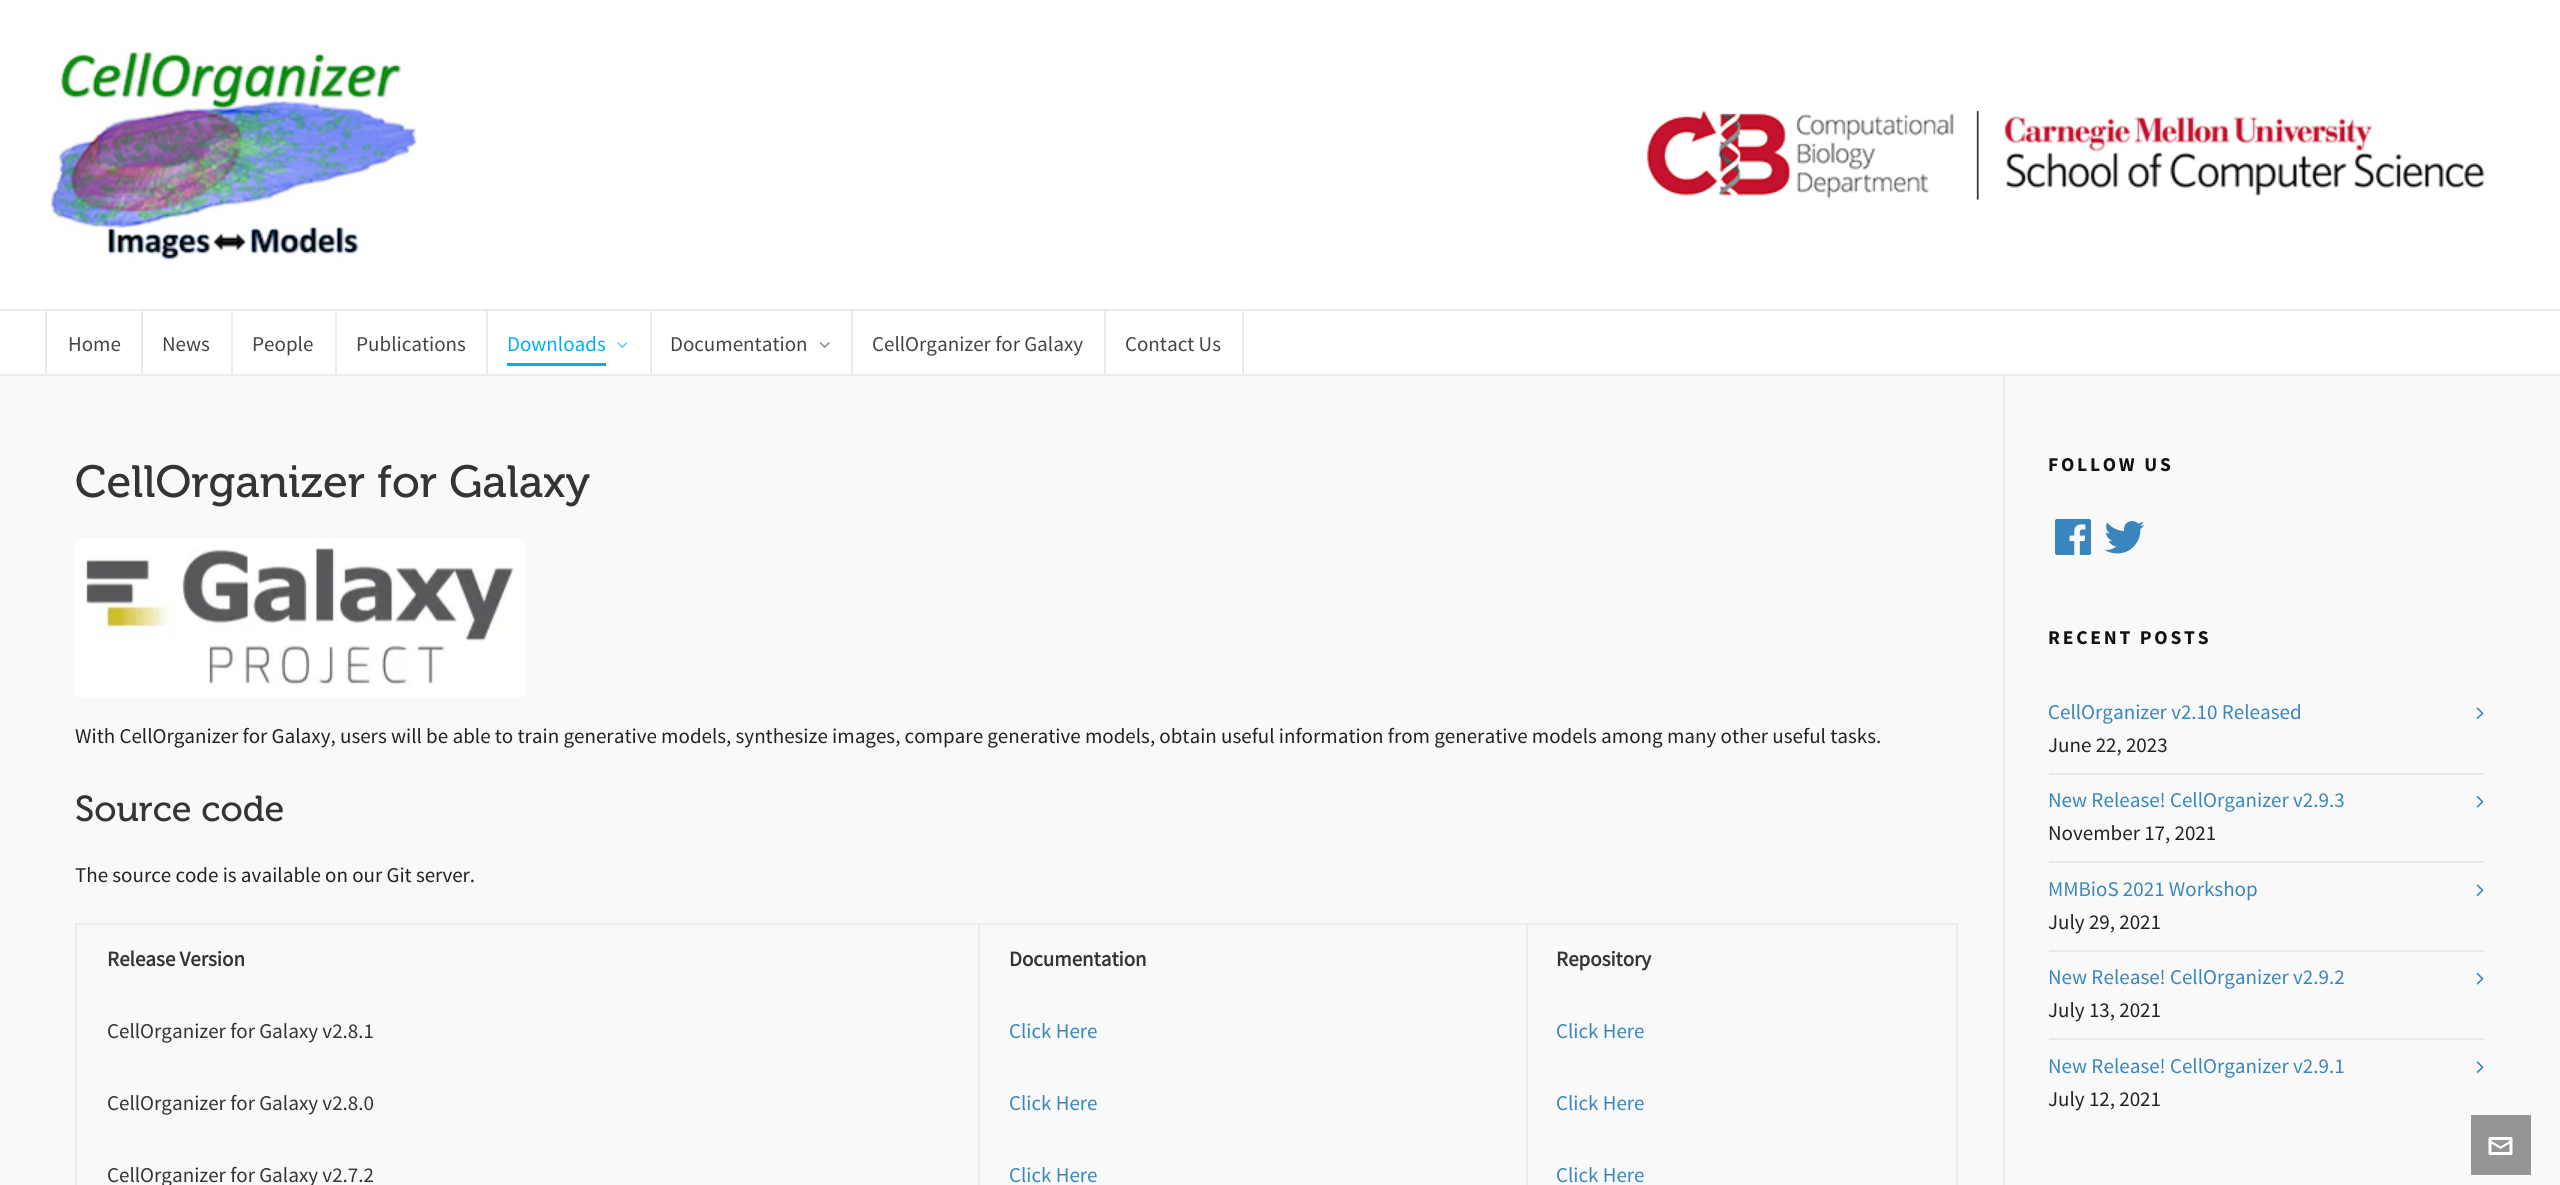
#include <cairo.h>
#include <math.h>
#include <stddef.h>

static cairo_t *c;
static void C(unsigned color){cairo_set_source_rgb(c, (color >> 16) / 255.0, (color >> 8 & 255) / 255.0, (color & 255) / 255.0);}
static void F(const char *family, double size, int italic, int bold){cairo_select_font_face(c, family, italic ? CAIRO_FONT_SLANT_ITALIC : CAIRO_FONT_SLANT_NORMAL,bold ? CAIRO_FONT_WEIGHT_BOLD : CAIRO_FONT_WEIGHT_NORMAL);cairo_set_font_size(c, size);}
static void T(double x, double y, const char *s){cairo_move_to(c, x, y);cairo_show_text(c, s);}
static void L(double x, double y, const char *s, double letter, double word){cairo_move_to(c, x, y);while (*s) {char ch[5] = {0};int n = 0;do ch[n++] = *s++; while ((*s & 0xC0) == 0x80);cairo_show_text(c, ch);cairo_rel_move_to(c, letter + word * (*ch == ' '), 0);}}
static void R(double x, double y, double w, double h){cairo_rectangle(c, x, y, w, h);cairo_fill(c);}
static void I(const char *path, double x, double y, double w, double h){cairo_surface_t *image = cairo_image_surface_create_from_png(path);cairo_save(c);cairo_set_source_surface(c, image, x, y);cairo_rectangle(c, x, y, w, h);cairo_fill(c);cairo_restore(c);cairo_surface_destroy(image);}
int main(void) {
cairo_surface_t *surface = cairo_image_surface_create(CAIRO_FORMAT_RGB24, 2560, 1185);
c = cairo_create(surface);
cairo_font_options_t *options = cairo_font_options_create();
cairo_font_options_set_hint_metrics(options, CAIRO_HINT_METRICS_OFF);
cairo_font_options_set_hint_style(options, CAIRO_HINT_STYLE_NONE);
cairo_set_font_options(c, options);
cairo_set_miter_limit(c, 4);
C(0xf9f9f9);
cairo_paint(c);
C(0xffffff);
R(0,0,2560,374);
C(0xebebeb);
R(2003,374,2,811);
R(0,374,2560,2);
I("1.png",50,51,367,209);
I("2.png",1646,110,333,90);
I("3.png",2003,115,482,81);
R(0,309,2560,2);
R(141,311,2,63);
R(45,311,2,63);
F("Source Sans Pro",21,0,0);
C(0x444444);
T(68,351,"Home");
C(0xebebeb);
R(231,311,2,63);
C(0x444444);
T(162,351,"News");
C(0xebebeb);
R(335,311,2,63);
C(0x444444);
T(252,351,"People");
C(0xebebeb);
R(486,311,2,63);
C(0x444444);
T(356,351,"Publications");
C(0xebebeb);
R(650,311,2,63);
C(0x00aeef);
T(507,351,"Downloads");
R(507,363,99,3);
I("4.png",617,342,11,6);
C(0xebebeb);
R(851,311,2,63);
C(0x444444);
T(670,351,"Documentation");
I("5.png",819,342,11,6);
C(0xebebeb);
R(1104,311,2,63);
C(0x444444);
T(872,351,"CellOrganizer for Galaxy");
C(0xebebeb);
R(1242,311,2,63);
C(0x444444);
T(1125,351,"Contact Us");
F("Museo",45,0,0);
C(0x323436);
T(75,497,"CellOrganizer for Galaxy");
I("6.png",75,539,450,158);
F("Source Sans Pro",21,0,0);
C(0x222222);
T(75,743,"With CellOrganizer for Galaxy, users will be able to train generative models, synthesize images, compare generative models, obtain useful information from generative models among many other useful tasks.");
F("Museo",36,0,0);
C(0x323436);
T(75,821,"Source code");
F("Source Sans Pro",21,0,0);
C(0x222222);
T(75,882,"The source code is available on our Git server.");
C(0xebebeb);
R(75,923,1883,2);
R(1956,923,2,262);
R(75,923,2,262);
F("Source Sans Pro",21,0,1);
C(0x323436);
T(107,966,"Release Version");
T(1009,966,"Documentation");
T(1556,966,"Repository");
F("Source Sans Pro",21,0,0);
T(107,1038,"CellOrganizer for Galaxy v2.8.1");
C(0x3886bd);
T(1009,1038,"Click Here");
T(1556,1038,"Click Here");
C(0x323436);
T(107,1110,"CellOrganizer for Galaxy v2.8.0");
C(0x3886bd);
T(1009,1110,"Click Here");
T(1556,1110,"Click Here");
C(0x323436);
T(107,1182,"CellOrganizer for Galaxy v2.7.2");
C(0xebebeb);
R(978,923,2,262);
C(0x3886bd);
T(1009,1182,"Click Here");
C(0xebebeb);
R(1526,923,2,262);
C(0x3886bd);
T(1556,1182,"Click Here");
F("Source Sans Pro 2",19.5,0,1);
C(0x111111);
L(2048,471,"FOLLOW US",2.75,0);
I("7.png",2055,519,36,36);
I("8.png",2104,521,41,33);
L(2048,644,"RECENT POSTS",2.75,0);
F("Source Sans Pro",21,0,0);
C(0x3886bd);
T(2048,719,"CellOrganizer v2.10 Released");
I("9.png",2476,707,8,12);
C(0x222222);
T(2048,752,"June 22, 2023");
C(0xe8e8e8);
R(2049,773,435,2);
C(0x3886bd);
T(2048,807,"New Release! CellOrganizer v2.9.3");
I("10.png",2476,796,8,12);
C(0x222222);
T(2048,840,"November 17, 2021");
C(0xe8e8e8);
R(2049,861,435,2);
C(0x3886bd);
T(2048,896,"MMBioS 2021 Workshop");
I("9.png",2476,884,8,12);
C(0x222222);
T(2048,929,"July 29, 2021");
C(0xe8e8e8);
R(2049,950,435,2);
C(0x3886bd);
T(2048,984,"New Release! CellOrganizer v2.9.2");
I("10.png",2476,973,8,12);
C(0x222222);
T(2048,1017,"July 13, 2021");
C(0xe8e8e8);
R(2049,1038,435,2);
C(0x3886bd);
T(2048,1073,"New Release! CellOrganizer v2.9.1");
I("9.png",2476,1061,8,12);
C(0x222222);
T(2048,1106,"July 12, 2021");
C(0x959595);
R(2471,1115,60,60);
I("11.png",2488,1137,25,18);
cairo_surface_write_to_png(surface, "o.png");
cairo_font_options_destroy(options);
cairo_destroy(c);
cairo_surface_destroy(surface);
return 0;
}
